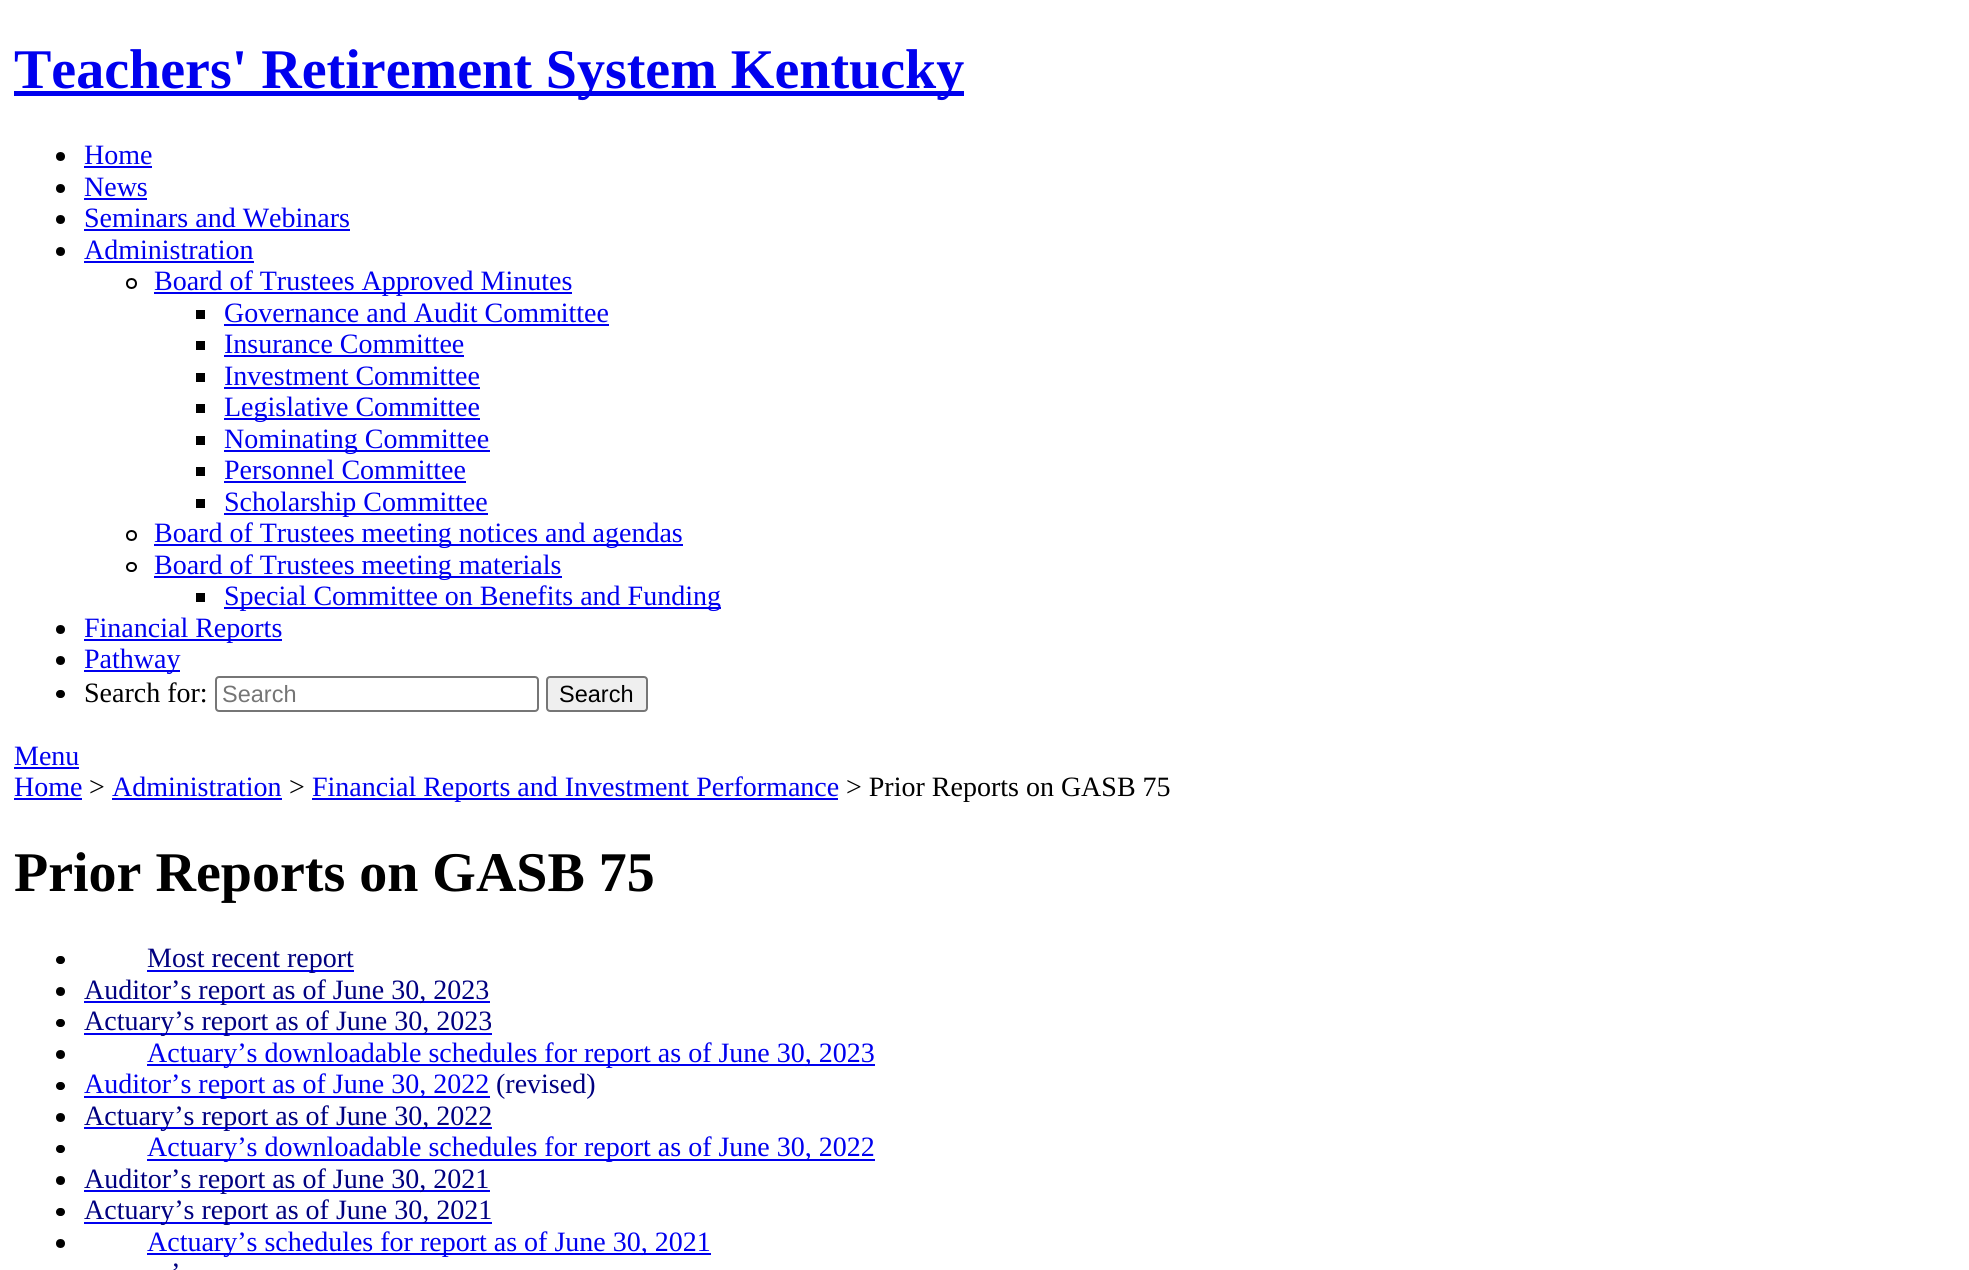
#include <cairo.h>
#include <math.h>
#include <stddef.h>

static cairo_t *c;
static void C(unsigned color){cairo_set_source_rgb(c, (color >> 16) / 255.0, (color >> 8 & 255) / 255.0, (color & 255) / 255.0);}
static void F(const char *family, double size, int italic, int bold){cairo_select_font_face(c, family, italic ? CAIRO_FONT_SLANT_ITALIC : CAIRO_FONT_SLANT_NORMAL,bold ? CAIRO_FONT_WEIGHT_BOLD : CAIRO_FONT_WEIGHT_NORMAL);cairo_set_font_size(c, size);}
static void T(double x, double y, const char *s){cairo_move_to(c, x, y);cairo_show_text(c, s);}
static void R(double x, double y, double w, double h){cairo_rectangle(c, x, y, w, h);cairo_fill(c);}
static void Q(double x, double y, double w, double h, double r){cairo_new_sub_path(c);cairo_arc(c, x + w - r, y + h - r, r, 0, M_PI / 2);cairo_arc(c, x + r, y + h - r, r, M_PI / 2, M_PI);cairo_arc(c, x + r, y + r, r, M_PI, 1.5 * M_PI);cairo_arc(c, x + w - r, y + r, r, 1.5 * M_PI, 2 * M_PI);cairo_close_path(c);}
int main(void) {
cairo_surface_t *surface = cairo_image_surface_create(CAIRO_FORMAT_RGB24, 1969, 1270);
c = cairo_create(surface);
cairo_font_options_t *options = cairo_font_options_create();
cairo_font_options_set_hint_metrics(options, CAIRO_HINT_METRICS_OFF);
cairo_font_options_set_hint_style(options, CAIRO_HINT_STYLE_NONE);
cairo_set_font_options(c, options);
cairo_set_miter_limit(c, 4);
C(0xffffff);
cairo_paint(c);
C(0x0000ee);
R(14,91,950,5);
F("Liberation Serif",56,0,1);
T(14,88,"Teachers' Retirement System Kentucky");
C(0x000000);
cairo_new_path(c);
cairo_arc(c,60.5,156.5,4.5,0,2 * M_PI);
cairo_fill(c);
F("Liberation Serif",28,0,0);
C(0x0000ee);
T(84,164,"Home");
R(84,166,68,2);
C(0x000000);
cairo_new_path(c);
cairo_arc(c,60.5,188.5,4.5,0,2 * M_PI);
cairo_fill(c);
C(0x0000ee);
T(84,196,"News");
R(84,198,63,2);
C(0x000000);
cairo_new_path(c);
cairo_arc(c,60.5,219.5,4.5,0,2 * M_PI);
cairo_fill(c);
C(0x0000ee);
T(84,227,"Seminars and Webinars");
R(84,229,266,2);
C(0x000000);
cairo_new_path(c);
cairo_arc(c,60.5,251.5,4.5,0,2 * M_PI);
cairo_fill(c);
C(0x0000ee);
T(84,259,"Administration");
R(84,261,170,2);
cairo_new_path(c);
cairo_arc(c,131.5,283.5,4.5,0,2 * M_PI);
C(0x000000);
cairo_stroke(c);
C(0x0000ee);
R(154,292,418,2);
T(154,290,"Board of Trustees Approved Minutes");
C(0x000000);
R(196,310,9,9);
C(0x0000ee);
T(224,322,"Governance and Audit Committee");
R(224,324,385,2);
C(0x000000);
R(196,341,9,9);
C(0x0000ee);
T(224,353,"Insurance Committee");
R(224,355,240,2);
C(0x000000);
R(196,373,9,9);
C(0x0000ee);
T(224,385,"Investment Committee");
R(224,387,256,2);
C(0x000000);
R(196,404,9,9);
C(0x0000ee);
R(224,418,256,2);
T(224,416,"Legislative Committee");
C(0x000000);
R(196,436,9,9);
C(0x0000ee);
R(224,450,266,2);
T(224,448,"Nominating Committee");
C(0x000000);
R(196,467,9,9);
C(0x0000ee);
T(224,479,"Personnel Committee");
R(224,481,242,2);
C(0x000000);
R(196,499,9,9);
C(0x0000ee);
R(224,513,264,2);
T(224,511,"Scholarship Committee");
cairo_new_path(c);
cairo_arc(c,131.5,535.5,4.5,0,2 * M_PI);
C(0x000000);
cairo_stroke(c);
C(0x0000ee);
R(154,544,529,2);
T(154,542,"Board of Trustees meeting notices and agendas");
Q(127,563,9,8,4);
C(0x000000);
cairo_stroke(c);
C(0x0000ee);
R(154,576,408,2);
T(154,574,"Board of Trustees meeting materials");
C(0x000000);
R(196,593,9,9);
C(0x0000ee);
R(224,607,497,2);
T(224,605,"Special Committee on Benefits and Funding");
C(0x000000);
cairo_new_path(c);
cairo_arc(c,60.5,629.5,4.5,0,2 * M_PI);
cairo_fill(c);
C(0x0000ee);
R(84,639,198,2);
T(84,637,"Financial Reports");
C(0x000000);
cairo_new_path(c);
cairo_arc(c,60.5,660.5,4.5,0,2 * M_PI);
cairo_fill(c);
C(0x0000ee);
R(84,670,96,2);
T(84,668,"Pathway");
C(0x000000);
Q(56,690,9,8,4);
cairo_fill(c);
T(84,702,"Search for:");
Q(216,677,322,34,3);
C(0x767676);
cairo_stroke(c);
F("Liberation Sans",23.5,0,0);
C(0x757575);
T(222,702,"Search");
C(0xefefef);
Q(547,677,100,34,3);
cairo_fill_preserve(c);
C(0x767676);
cairo_stroke(c);
C(0x000000);
T(559,702,"Search");
F("Liberation Serif",28,0,0);
C(0x0000ee);
T(14,765,"Menu");
R(14,767,65,2);
T(14,796,"Home");
R(14,798,68,2);
C(0x000000);
T(89,796,">");
C(0x0000ee);
T(112,796,"Administration");
R(112,798,170,2);
C(0x000000);
T(289,796,">");
C(0x0000ee);
R(312,798,526,2);
T(312,796,"Financial Reports and Investment Performance");
C(0x000000);
T(846,796,"> Prior Reports on GASB 75");
F("Liberation Serif",56,0,1);
T(14,891,"Prior Reports on GASB 75");
Q(56,956,9,8,4);
cairo_fill(c);
C(0x0000ee);
R(147,970,207,2);
F("Liberation Serif",28,0,0);
C(0x000080);
T(147,967,"Most recent report");
C(0x000000);
cairo_new_path(c);
cairo_arc(c,60.5,991.5,4.5,0,2 * M_PI);
cairo_fill(c);
C(0x0000ee);
R(84,1001,406,2);
C(0x000080);
T(84,999,"Auditor’s report as of June 30, 2023");
C(0x000000);
Q(56,1019,9,8,4);
cairo_fill(c);
C(0x0000ee);
R(84,1033,408,2);
C(0x000080);
T(84,1030,"Actuary’s report as of June 30, 2023");
C(0x000000);
cairo_new_path(c);
cairo_arc(c,60.5,1054.5,4.5,0,2 * M_PI);
cairo_fill(c);
C(0x0000ee);
R(147,1064,728,2);
T(147,1062,"Actuary’s downloadable schedules for report as of June 30, 2023");
C(0x000000);
Q(56,1082,9,8,4);
cairo_fill(c);
C(0x0000ee);
R(84,1096,406,2);
T(84,1093,"Auditor’s report as of June 30, 2022");
C(0x000080);
T(496,1093,"(revised)");
C(0x000000);
cairo_new_path(c);
cairo_arc(c,60.5,1117.5,4.5,0,2 * M_PI);
cairo_fill(c);
C(0x0000ee);
R(84,1127,408,2);
C(0x000080);
T(84,1125,"Actuary’s report as of June 30, 2022");
C(0x000000);
Q(56,1145,9,8,4);
cairo_fill(c);
C(0x0000ee);
R(147,1159,728,2);
T(147,1156,"Actuary’s downloadable schedules for report as of June 30, 2022");
C(0x000000);
cairo_new_path(c);
cairo_arc(c,60.5,1180.5,4.5,0,2 * M_PI);
cairo_fill(c);
C(0x0000ee);
R(84,1190,406,2);
C(0x000080);
T(84,1188,"Auditor’s report as of June 30, 2021");
C(0x000000);
Q(56,1208,9,8,4);
cairo_fill(c);
C(0x0000ee);
R(84,1222,408,2);
C(0x000080);
T(84,1219,"Actuary’s report as of June 30, 2021");
C(0x000000);
cairo_new_path(c);
cairo_arc(c,60.5,1243.5,4.5,0,2 * M_PI);
cairo_fill(c);
C(0x0000ee);
R(147,1253,564,2);
T(147,1251,"Actuary’s schedules for report as of June 30, 2021");
C(0x000080);
T(171,1282,"’");
cairo_surface_write_to_png(surface, "o.png");
cairo_font_options_destroy(options);
cairo_destroy(c);
cairo_surface_destroy(surface);
return 0;
}
